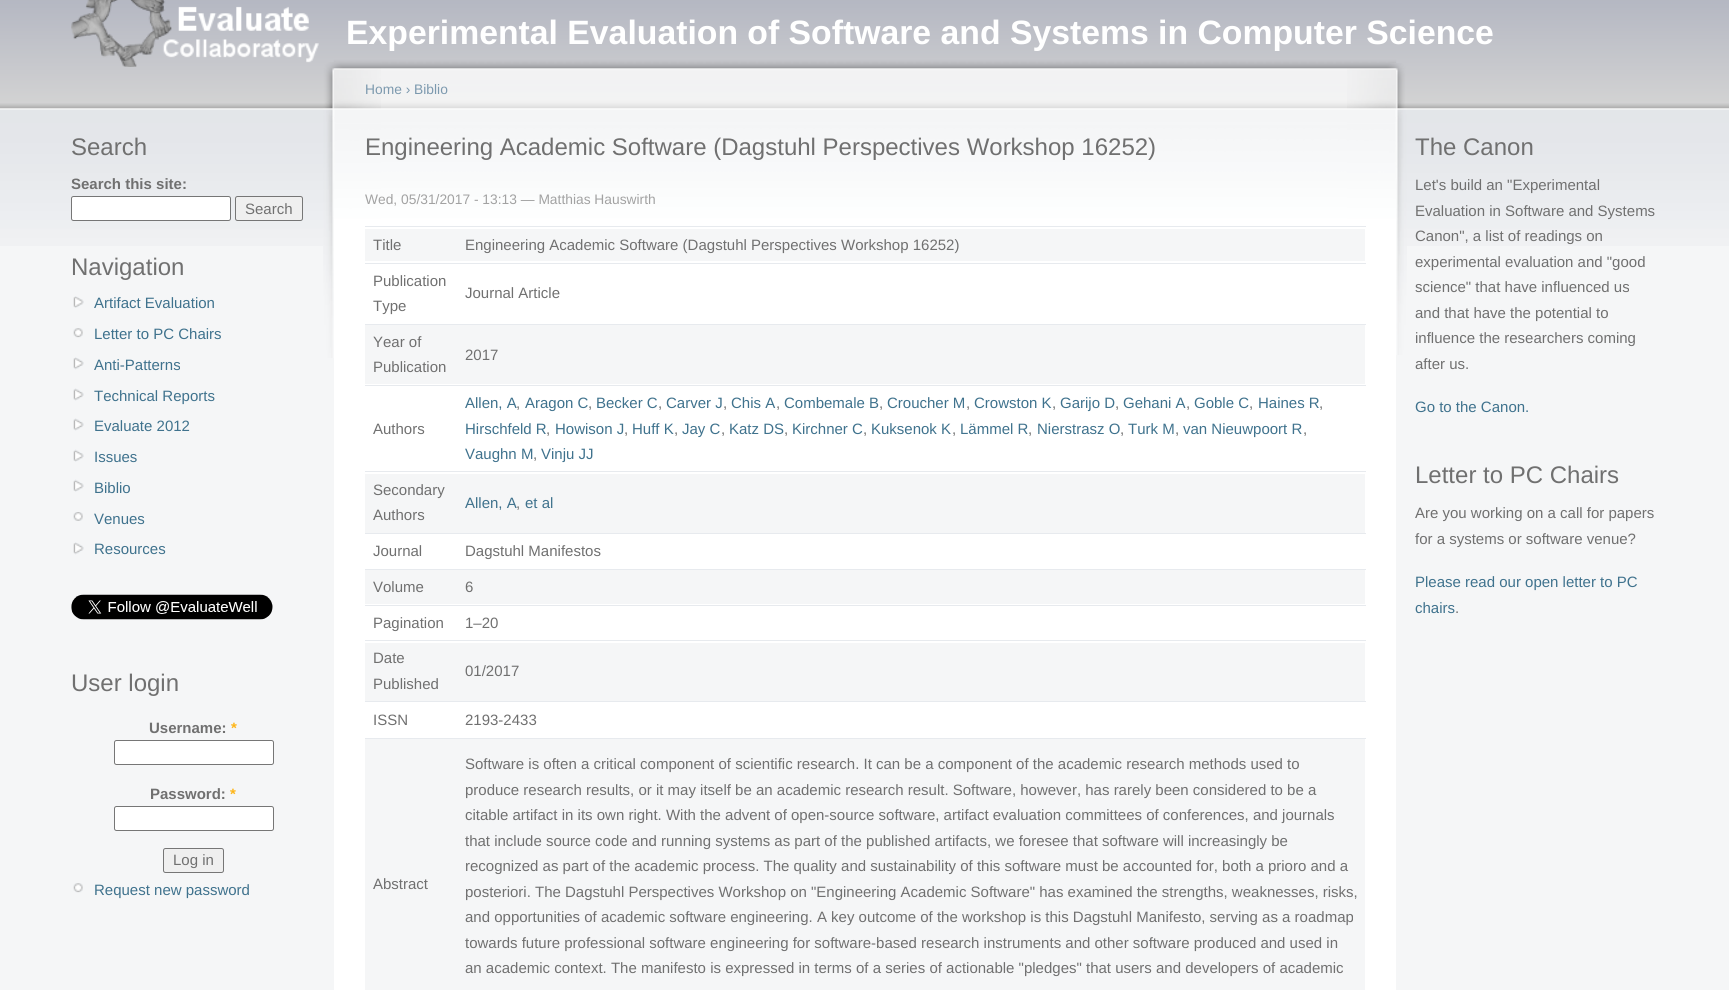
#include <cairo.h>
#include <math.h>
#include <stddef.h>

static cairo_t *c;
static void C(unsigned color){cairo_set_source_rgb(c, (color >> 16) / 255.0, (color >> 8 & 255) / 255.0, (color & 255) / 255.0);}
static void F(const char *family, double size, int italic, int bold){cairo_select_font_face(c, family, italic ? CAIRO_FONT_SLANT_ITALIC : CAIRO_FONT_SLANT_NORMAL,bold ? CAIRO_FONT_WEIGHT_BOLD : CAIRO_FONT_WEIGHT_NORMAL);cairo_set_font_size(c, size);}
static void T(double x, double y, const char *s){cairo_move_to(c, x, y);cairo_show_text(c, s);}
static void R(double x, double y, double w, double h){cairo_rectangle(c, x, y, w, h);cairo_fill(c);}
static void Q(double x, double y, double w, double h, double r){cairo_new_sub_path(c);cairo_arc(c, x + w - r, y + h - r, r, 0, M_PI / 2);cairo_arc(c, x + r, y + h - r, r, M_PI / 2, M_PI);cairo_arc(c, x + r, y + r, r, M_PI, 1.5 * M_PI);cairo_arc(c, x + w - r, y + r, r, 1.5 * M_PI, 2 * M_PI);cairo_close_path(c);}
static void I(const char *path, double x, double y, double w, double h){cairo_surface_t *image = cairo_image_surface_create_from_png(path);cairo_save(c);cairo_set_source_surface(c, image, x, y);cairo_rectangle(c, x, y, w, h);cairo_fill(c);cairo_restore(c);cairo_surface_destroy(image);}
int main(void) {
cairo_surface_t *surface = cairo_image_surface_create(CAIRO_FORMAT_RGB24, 1729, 990);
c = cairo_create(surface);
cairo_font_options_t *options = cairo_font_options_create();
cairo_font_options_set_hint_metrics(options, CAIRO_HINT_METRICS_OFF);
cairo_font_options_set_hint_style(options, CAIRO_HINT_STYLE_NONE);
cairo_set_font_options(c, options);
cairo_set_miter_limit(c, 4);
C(0xf5f6f7);
cairo_paint(c);
I("1.png",0,0,1729,246);
I("2.png",71,0,248,67);
F("Liberation Sans",33.75,0,1);
C(0xffffff);
T(346,44,"Experimental Evaluation of Software and Systems in Computer Science");
F("Liberation Sans",24,0,0);
C(0x707070);
T(71,155,"Search");
F("Liberation Sans",15,0,1);
T(71,189,"Search this site:");
C(0xffffff);
Q(71.5,196.5,159,24,2);
cairo_fill_preserve(c);
C(0x767676);
cairo_set_line_width(c,1);
cairo_stroke(c);
C(0xefefef);
Q(235.5,196.5,67,24,2);
cairo_fill_preserve(c);
C(0x767676);
cairo_stroke(c);
F("Liberation Sans",15,0,0);
C(0x707070);
T(245,214,"Search");
F("Liberation Sans",24,0,0);
T(71,275,"Navigation");
I("3.png",73,296,11,12);
F("Liberation Sans",15,0,0);
C(0x3f728d);
T(94,308,"Artifact Evaluation");
I("4.png",73,328,10,10);
T(94,339,"Letter to PC Chairs");
I("5.png",73,357,11,13);
T(94,370,"Anti-Patterns");
I("6.png",73,388,11,13);
T(94,401,"Technical Reports");
I("6.png",73,418,11,13);
T(94,431,"Evaluate 2012");
I("7.png",73,449,11,13);
T(94,462,"Issues");
I("7.png",73,479,11,13);
T(94,493,"Biblio");
I("8.png",73,512,10,9);
T(94,524,"Venues");
I("5.png",73,542,11,13);
T(94,554,"Resources");
I("9.png",71,594,202,26);
F("Liberation Sans",24,0,0);
C(0x707070);
T(71,691,"User login");
F("Liberation Sans",15,0,1);
T(149,733,"Username:");
C(0xfeb517);
T(231,733,"*");
C(0xffffff);
Q(114.5,740.5,159,24,2);
cairo_fill_preserve(c);
C(0x767676);
cairo_stroke(c);
C(0x707070);
T(150,799,"Password:");
C(0xfeb517);
T(230,799,"*");
C(0xffffff);
Q(114.5,806.5,159,24,2);
cairo_fill_preserve(c);
C(0x767676);
cairo_stroke(c);
C(0xefefef);
Q(163.5,848.5,60,24,2);
cairo_fill_preserve(c);
C(0x767676);
cairo_stroke(c);
F("Liberation Sans",15,0,0);
C(0x707070);
T(173,865,"Log in");
I("4.png",73,883,10,10);
C(0x3f728d);
T(94,895,"Request new password");
C(0xffffff);
R(334,261,1062,729);
I("10.png",333,58,1064,171);
I("11.png",1347,63,60,292);
I("12.png",323,62,58,296);
F("Liberation Sans",13.8,0,0);
C(0x7c99ae);
T(365,94,"Home › Biblio");
F("Liberation Sans",24,0,0);
C(0x707070);
T(365,155,"Engineering Academic Software (Dagstuhl Perspectives Workshop 16252)");
F("Liberation Sans",13.8,0,0);
C(0xa2a2a2);
T(365,204,"Wed, 05/31/2017 - 13:13 — Matthias Hauswirth");
C(0xf5f6f7);
R(365,229,1000,32);
C(0xe7eaee);
R(365,226,1001,1);
F("Liberation Sans",15,0,0);
C(0x707070);
T(373,250,"Title");
T(465,250,"Engineering Academic Software (Dagstuhl Perspectives Workshop 16252)");
C(0xe7eaee);
R(365,263,1001,1);
C(0x707070);
T(373,286,"Publication");
T(373,311,"Type");
T(465,298,"Journal Article");
C(0xf5f6f7);
R(365,325,1000,59);
C(0xe7eaee);
R(365,324,1001,1);
C(0x707070);
T(373,347,"Year of");
T(373,372,"Publication");
T(465,360,"2017");
C(0xe7eaee);
R(365,385,1001,1);
C(0x707070);
T(373,434,"Authors");
C(0x3f728d);
T(465,408,"Allen, A");
C(0x707070);
T(516,408,",");
C(0x3f728d);
T(525,408,"Aragon C");
C(0x707070);
T(588,408,",");
C(0x3f728d);
T(596,408,"Becker C");
C(0x707070);
T(658,408,",");
C(0x3f728d);
T(666,408,"Carver J");
C(0x707070);
T(723,408,",");
C(0x3f728d);
T(731,408,"Chis A");
C(0x707070);
T(776,408,",");
C(0x3f728d);
T(784,408,"Combemale B");
C(0x707070);
T(879,408,",");
C(0x3f728d);
T(887,408,"Croucher M");
C(0x707070);
T(966,408,",");
C(0x3f728d);
T(974,408,"Crowston K");
C(0x707070);
T(1052,408,",");
C(0x3f728d);
T(1060,408,"Garijo D");
C(0x707070);
T(1115,408,",");
C(0x3f728d);
T(1123,408,"Gehani A");
C(0x707070);
T(1186,408,",");
C(0x3f728d);
T(1194,408,"Goble C");
C(0x707070);
T(1249,408,",");
C(0x3f728d);
T(1258,408,"Haines R");
C(0x707070);
T(1319,408,",");
C(0x3f728d);
T(465,434,"Hirschfeld R");
C(0x707070);
T(546,434,",");
C(0x3f728d);
T(555,434,"Howison J");
C(0x707070);
T(624,434,",");
C(0x3f728d);
T(632,434,"Huff K");
C(0x707070);
T(674,434,",");
C(0x3f728d);
T(682,434,"Jay C");
C(0x707070);
T(721,434,",");
C(0x3f728d);
T(729,434,"Katz DS");
C(0x707070);
T(784,434,",");
C(0x3f728d);
T(792,434,"Kirchner C");
C(0x707070);
T(863,434,",");
C(0x3f728d);
T(871,434,"Kuksenok K");
C(0x707070);
T(952,434,",");
C(0x3f728d);
T(960,434,"Lämmel R");
C(0x707070);
T(1028,434,",");
C(0x3f728d);
T(1037,434,"Nierstrasz O");
C(0x707070);
T(1120,434,",");
C(0x3f728d);
T(1128,434,"Turk M");
C(0x707070);
T(1175,434,",");
C(0x3f728d);
T(1183,434,"van Nieuwpoort R");
C(0x707070);
T(1303,434,",");
C(0x3f728d);
T(465,459,"Vaughn M");
C(0x707070);
T(533,459,",");
C(0x3f728d);
T(541,459,"Vinju JJ");
C(0xf5f6f7);
R(365,474,1000,59);
C(0xe7eaee);
R(365,471,1001,1);
C(0x707070);
T(373,495,"Secondary");
T(373,520,"Authors");
C(0x3f728d);
T(465,508,"Allen, A");
C(0x707070);
T(516,508,",");
C(0x3f728d);
T(525,508,"et al");
C(0xe7eaee);
R(365,533,1001,1);
C(0x707070);
T(373,556,"Journal");
T(465,556,"Dagstuhl Manifestos");
C(0xf5f6f7);
R(365,570,1000,34);
C(0xe7eaee);
R(365,569,1001,1);
C(0x707070);
T(373,592,"Volume");
T(465,592,"6");
C(0xe7eaee);
R(365,605,1001,1);
C(0x707070);
T(373,628,"Pagination");
T(465,628,"1–20");
C(0xf5f6f7);
R(365,643,1000,58);
C(0xe7eaee);
R(365,640,1001,1);
C(0x707070);
T(373,663,"Date");
T(373,689,"Published");
T(465,676,"01/2017");
C(0xe7eaee);
R(365,701,1001,1);
C(0x707070);
T(373,725,"ISSN");
T(465,725,"2193-2433");
C(0xf5f6f7);
R(365,739,1000,251);
C(0xe7eaee);
R(365,738,1001,1);
C(0x707070);
T(373,889,"Abstract");
T(465,769,"Software is often a critical component of scientific research. It can be a component of the academic research methods used to");
T(465,795,"produce research results, or it may itself be an academic research result. Software, however, has rarely been considered to be a");
T(465,820,"citable artifact in its own right. With the advent of open-source software, artifact evaluation committees of conferences, and journals");
T(465,846,"that include source code and running systems as part of the published artifacts, we foresee that software will increasingly be");
T(465,871,"recognized as part of the academic process. The quality and sustainability of this software must be accounted for, both a prioro and a");
T(465,897,"posteriori. The Dagstuhl Perspectives Workshop on \"Engineering Academic Software\" has examined the strengths, weaknesses, risks,");
T(465,922,"and opportunities of academic software engineering. A key outcome of the workshop is this Dagstuhl Manifesto, serving as a roadmap");
T(465,948,"towards future professional software engineering for software-based research instruments and other software produced and used in");
T(465,973,"an academic context. The manifesto is expressed in terms of a series of actionable \"pledges\" that users and developers of academic");
F("Liberation Sans",24,0,0);
T(1415,155,"The Canon");
F("Liberation Sans",15,0,0);
T(1415,190,"Let's build an \"Experimental");
T(1415,216,"Evaluation in Software and Systems");
T(1415,241,"Canon\", a list of readings on");
T(1415,267,"experimental evaluation and \"good");
T(1415,292,"science\" that have influenced us");
T(1415,318,"and that have the potential to");
T(1415,343,"influence the researchers coming");
T(1415,369,"after us.");
C(0x3f728d);
T(1415,412,"Go to the Canon.");
F("Liberation Sans",24,0,0);
C(0x707070);
T(1415,483,"Letter to PC Chairs");
F("Liberation Sans",15,0,0);
T(1415,518,"Are you working on a call for papers");
T(1415,544,"for a systems or software venue?");
C(0x3f728d);
T(1415,587,"Please read our open letter to PC");
T(1415,613,"chairs");
C(0x707070);
T(1455,613,".");
cairo_surface_write_to_png(surface, "o.png");
cairo_font_options_destroy(options);
cairo_destroy(c);
cairo_surface_destroy(surface);
return 0;
}
